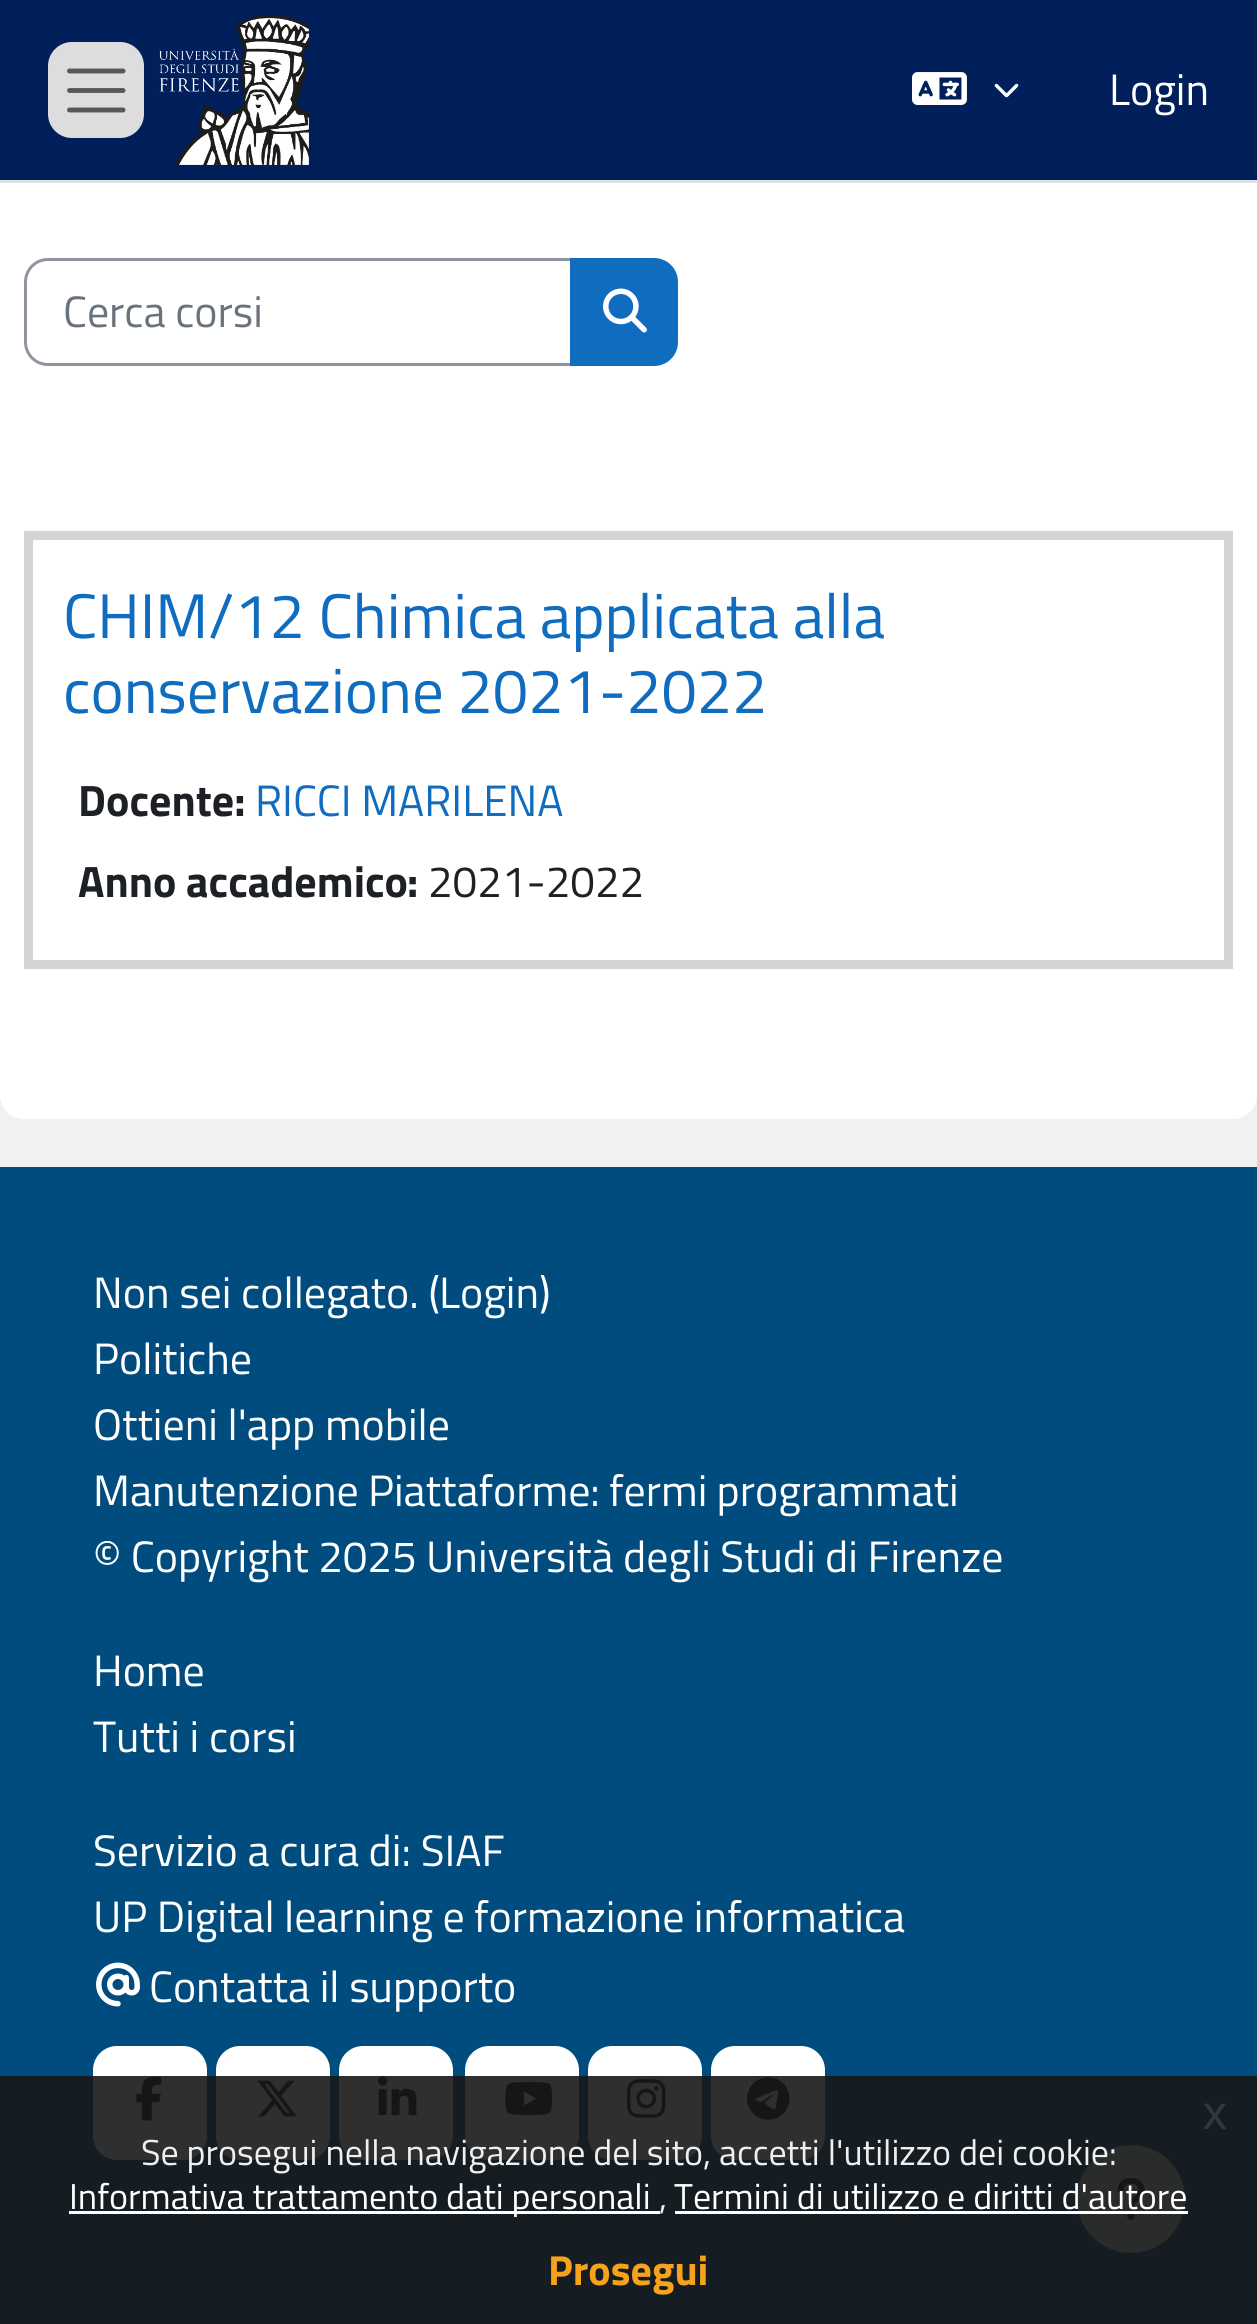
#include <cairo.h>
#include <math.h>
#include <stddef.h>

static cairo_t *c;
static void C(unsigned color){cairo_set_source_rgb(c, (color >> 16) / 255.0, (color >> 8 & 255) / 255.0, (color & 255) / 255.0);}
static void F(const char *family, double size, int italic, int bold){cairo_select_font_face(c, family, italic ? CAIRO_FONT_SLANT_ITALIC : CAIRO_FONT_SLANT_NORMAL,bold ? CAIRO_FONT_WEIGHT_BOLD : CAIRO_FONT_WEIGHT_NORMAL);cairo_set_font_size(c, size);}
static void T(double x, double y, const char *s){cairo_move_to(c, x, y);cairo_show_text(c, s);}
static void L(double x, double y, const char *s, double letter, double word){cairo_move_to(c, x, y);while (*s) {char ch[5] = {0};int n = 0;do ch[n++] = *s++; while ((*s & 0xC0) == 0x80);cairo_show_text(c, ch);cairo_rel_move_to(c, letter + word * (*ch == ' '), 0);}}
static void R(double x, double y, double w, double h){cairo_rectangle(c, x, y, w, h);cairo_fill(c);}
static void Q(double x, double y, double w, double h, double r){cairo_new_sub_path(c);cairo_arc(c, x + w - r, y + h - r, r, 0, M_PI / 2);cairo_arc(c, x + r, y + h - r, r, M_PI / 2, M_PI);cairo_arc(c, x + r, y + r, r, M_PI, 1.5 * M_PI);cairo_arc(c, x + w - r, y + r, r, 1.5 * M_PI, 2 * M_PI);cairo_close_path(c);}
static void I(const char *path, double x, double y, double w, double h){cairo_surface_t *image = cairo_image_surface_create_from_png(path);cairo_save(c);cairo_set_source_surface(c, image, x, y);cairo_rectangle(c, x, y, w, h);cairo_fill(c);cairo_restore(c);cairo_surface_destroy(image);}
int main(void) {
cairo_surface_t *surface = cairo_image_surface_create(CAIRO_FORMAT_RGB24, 1257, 2324);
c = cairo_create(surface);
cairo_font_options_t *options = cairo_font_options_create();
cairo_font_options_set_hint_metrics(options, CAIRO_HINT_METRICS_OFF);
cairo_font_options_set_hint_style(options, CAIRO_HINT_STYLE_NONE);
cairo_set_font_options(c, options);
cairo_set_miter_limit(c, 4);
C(0xf1f1f1);
cairo_paint(c);
C(0xffffff);
Q(0,-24,1257,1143,24);
cairo_fill(c);
C(0x001f5b);
R(0,0,1257,180);
C(0xdee2e6);
R(0,180,1257,3);
C(0xdddddd);
Q(48,42,96,96,24);
cairo_fill(c);
cairo_new_path(c);
cairo_move_to(c,69.5,71);
cairo_line_to(c,123,71);
cairo_move_to(c,69.5,90.5);
cairo_line_to(c,123,90.5);
cairo_move_to(c,69.5,110);
cairo_line_to(c,123,110);
C(0x585858);
cairo_set_line_width(c,4.9);
cairo_set_line_cap(c,CAIRO_LINE_CAP_ROUND);
cairo_stroke(c);
I("1.png",159,14,150,151);
I("2.png",912,72,55,33);
I("3.png",994,83,25,15);
F("Titillium Web",43.95,0,0);
C(0xffffff);
T(1109,105,"Login");
cairo_new_path(c);
cairo_move_to(c,48,259.5);
cairo_line_to(c,571.5,259.5);
cairo_line_to(c,571.5,364.5);
cairo_line_to(c,48,364.5);
cairo_curve_to(c,35.5,364.5,25.5,354.5,25.5,342);
cairo_line_to(c,25.5,282);
cairo_curve_to(c,25.5,269.5,35.5,259.5,48,259.5);
cairo_close_path(c);
C(0x8f959e);
cairo_set_line_width(c,3);
cairo_set_line_cap(c,CAIRO_LINE_CAP_BUTT);
cairo_stroke(c);
C(0x6a737b);
T(63,327,"Cerca corsi");
C(0x0f6cbf);
cairo_new_path(c);
cairo_move_to(c,571.5,259.5);
cairo_line_to(c,654,259.5);
cairo_curve_to(c,666.5,259.5,676.5,269.5,676.5,282);
cairo_line_to(c,676.5,342);
cairo_curve_to(c,676.5,354.5,666.5,364.5,654,364.5);
cairo_line_to(c,571.5,364.5);
cairo_close_path(c);
cairo_fill_preserve(c);
cairo_stroke(c);
I("4.png",603,288,44,45);
cairo_rectangle(c,28.5,535.5,1200,429);
C(0xd4d4d4);
cairo_set_line_width(c,9);
cairo_stroke(c);
F("Titillium Web",63,0,0);
C(0x0f6cbf);
T(63,638,"CHIM/12 Chimica applicata alla");
T(63,713,"conservazione 2021-2022");
F("Titillium Web",43.95,0,1);
C(0x1d2125);
T(78,816,"Docente:");
F("Titillium Web",43.95,0,0);
C(0x0f6cbf);
T(255,816,"RICCI MARILENA");
F("Titillium Web",43.95,0,1);
C(0x1d2125);
T(78,897,"Anno accademico");
T(407,897,":");
F("Titillium Web",43.95,0,0);
T(428,897,"2021-2022");
C(0x004c7f);
R(0,1167,1257,1157);
C(0xffffff);
T(93,1308,"Non sei collegato. (");
T(439,1308,"Login)");
T(93,1374,"Politiche");
T(93,1440,"Ottieni l'app mobile");
L(93,1506,"Manutenzione Piattaforme: fermi programmati",0,-.5);
L(93,1572,"© Copyright 2025 Università degli Studi di Firenze",0,-.25);
T(93,1686,"Home");
T(93,1752,"Tutti i corsi");
T(93,1866,"Servizio a cura di: SIAF");
L(93,1932,"UP Digital learning e formazione informatica",0,-.25);
I("5.png",96,1962,44,45);
T(149,2002,"Contatta il supporto");
Q(93,2046,114,114,24);
cairo_fill(c);
I("6.png",136,2076,26,45);
Q(216,2046,114,114,24);
cairo_fill(c);
I("7.png",257,2080,40,37);
Q(339,2046,114,114,24);
cairo_fill(c);
I("8.png",378,2076,39,39);
Q(465,2046,114,114,24);
cairo_fill(c);
I("9.png",505,2082,48,33);
Q(588,2046,114,114,24);
cairo_fill(c);
I("10.png",627,2079,39,39);
Q(711,2046,114,114,24);
cairo_fill(c);
I("11.png",747,2077,43,43);
C(0xced4da);
cairo_arc(c,1131,2199,54,0,2 * M_PI);
cairo_fill(c);
I("12.png",1117,2178,28,42);
cairo_set_source_rgba(c,0.098,0.098,0.098,0.9);
R(0,2076,1257,248);
F("Liberation Sans",48,0,0);
C(0x32383d);
T(1203,2129,"x");
F("Titillium Web",36,0,0);
C(0xefefef);
T(141,2165,"Se prosegui nella navigazione del sito, accetti l'utilizzo dei cookie:");
C(0xffffff);
R(69,2211,591,3);
T(69,2209,"Informativa trattamento dati personali");
C(0xefefef);
T(659,2209,",");
C(0xffffff);
R(675,2211,513,3);
T(674,2209,"Termini di utilizzo e diritti d'autore");
F("Titillium Web",42,0,1);
C(0xf6a21d);
T(548,2285,"Prosegui");
cairo_surface_write_to_png(surface, "o.png");
cairo_font_options_destroy(options);
cairo_destroy(c);
cairo_surface_destroy(surface);
return 0;
}
